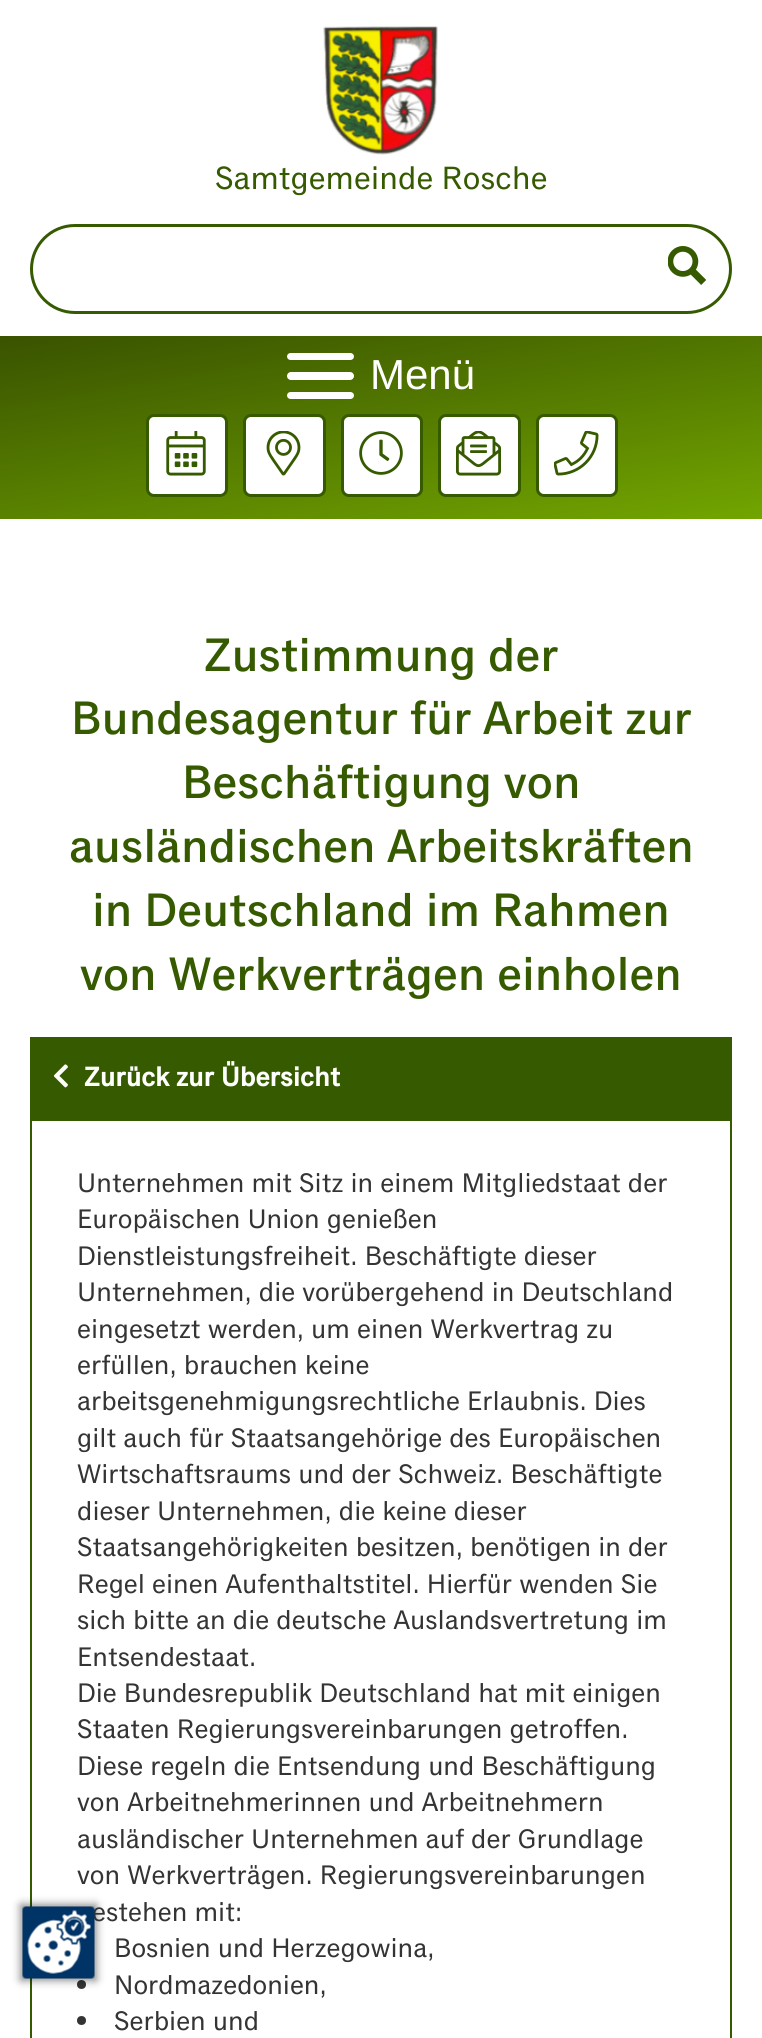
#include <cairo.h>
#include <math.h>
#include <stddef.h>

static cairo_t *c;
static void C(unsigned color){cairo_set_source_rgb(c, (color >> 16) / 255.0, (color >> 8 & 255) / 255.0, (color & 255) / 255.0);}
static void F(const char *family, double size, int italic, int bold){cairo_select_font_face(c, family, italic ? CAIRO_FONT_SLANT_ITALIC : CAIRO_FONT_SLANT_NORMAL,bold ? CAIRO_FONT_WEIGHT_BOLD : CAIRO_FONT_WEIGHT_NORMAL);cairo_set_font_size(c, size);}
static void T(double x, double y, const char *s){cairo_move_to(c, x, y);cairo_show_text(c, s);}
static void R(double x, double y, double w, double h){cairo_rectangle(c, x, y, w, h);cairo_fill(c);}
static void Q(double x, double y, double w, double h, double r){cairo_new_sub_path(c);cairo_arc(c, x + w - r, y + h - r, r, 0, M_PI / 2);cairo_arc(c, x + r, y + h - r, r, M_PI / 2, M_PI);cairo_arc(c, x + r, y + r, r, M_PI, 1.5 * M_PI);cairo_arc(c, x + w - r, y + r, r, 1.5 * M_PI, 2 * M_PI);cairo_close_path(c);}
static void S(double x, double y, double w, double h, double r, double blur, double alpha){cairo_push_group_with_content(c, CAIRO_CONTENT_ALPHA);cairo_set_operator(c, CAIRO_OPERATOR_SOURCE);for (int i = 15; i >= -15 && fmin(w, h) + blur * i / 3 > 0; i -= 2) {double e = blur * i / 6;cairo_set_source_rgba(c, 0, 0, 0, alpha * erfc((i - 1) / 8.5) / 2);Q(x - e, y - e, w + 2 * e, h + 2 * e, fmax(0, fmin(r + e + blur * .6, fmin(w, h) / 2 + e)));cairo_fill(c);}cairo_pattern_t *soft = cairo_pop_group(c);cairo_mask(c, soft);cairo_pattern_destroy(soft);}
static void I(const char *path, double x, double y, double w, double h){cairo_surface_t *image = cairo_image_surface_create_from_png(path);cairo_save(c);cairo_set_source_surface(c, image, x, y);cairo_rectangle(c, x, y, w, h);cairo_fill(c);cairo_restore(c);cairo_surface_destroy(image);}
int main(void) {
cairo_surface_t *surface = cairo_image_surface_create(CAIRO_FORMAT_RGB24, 762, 2038);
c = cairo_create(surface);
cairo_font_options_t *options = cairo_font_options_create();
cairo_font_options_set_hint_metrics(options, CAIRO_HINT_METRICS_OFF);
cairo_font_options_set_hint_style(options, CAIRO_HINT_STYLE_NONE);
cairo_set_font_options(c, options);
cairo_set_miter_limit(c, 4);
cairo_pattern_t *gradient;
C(0xffffff);
cairo_paint(c);
cairo_rectangle(c,31,1120,700,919);
C(0x365a00);
cairo_stroke(c);
C(0x343434);
cairo_arc(c,81.5,1984.5,4.5,0,2 * M_PI);
cairo_fill(c);
C(0x000000);
S(21,1905,75,75,0,4.5,.5);
F("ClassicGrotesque",27,0,0);
C(0x343434);
T(92,1921,"estehen mit:");
I("1.png",22,1906,73,73);
I("2.png",323,26,115,129);
F("ClassicGrotesque",32.4,0,0);
C(0x365a00);
T(215,189,"Samtgemeinde Rosche");
Q(31.5,225.5,699,87,43.5);
cairo_set_line_width(c,3);
cairo_stroke(c);
I("3.png",668,246,39,39);
gradient = cairo_pattern_create_linear(408,581,354,274);
cairo_pattern_add_color_stop_rgba(gradient,0,0.447,0.647,0,1);
cairo_pattern_add_color_stop_rgba(gradient,1,0.224,0.325,0,1);
cairo_set_source(c,gradient);
cairo_pattern_destroy(gradient);
R(0,336,762,183);
C(0xffffff);
Q(287,353,67,7,3.5);
cairo_fill(c);
Q(287,372,67,8,4);
cairo_fill(c);
Q(287,392,67,7,3.5);
cairo_fill(c);
F("Liberation Sans",42,0,0);
T(370,389,"Menü");
Q(147.5,415.5,79,80,6.5);
cairo_fill_preserve(c);
C(0x365a00);
cairo_stroke(c);
I("4.png",166,431,40,45);
C(0xffffff);
Q(244.5,415.5,80,80,6.5);
cairo_fill_preserve(c);
C(0x365a00);
cairo_stroke(c);
I("5.png",266,431,35,45);
C(0xffffff);
Q(342.5,415.5,79,80,6.5);
cairo_fill_preserve(c);
C(0x365a00);
cairo_stroke(c);
I("6.png",359,431,44,44);
C(0xffffff);
Q(439.5,415.5,80,80,6.5);
cairo_fill_preserve(c);
C(0x365a00);
cairo_stroke(c);
I("7.png",456,431,45,45);
C(0xffffff);
Q(537.5,415.5,79,80,6.5);
cairo_fill_preserve(c);
C(0x365a00);
cairo_stroke(c);
I("8.png",554,431,45,45);
F("ClassicGrotesque Medium",47.25,0,0);
T(204,671,"Zustimmung der");
T(71,734,"Bundesagentur für Arbeit zur");
T(182,798,"Beschäftigung von");
T(69,862,"ausländischen Arbeitskräften");
T(92,926,"in Deutschland im Rahmen");
T(80,990,"von Werkverträgen einholen");
R(30,1037,702,82);
I("9.png",53,1064,15,24);
F("ClassicGrotesque",27,0,1);
C(0xffffff);
T(84,1086,"Zurück zur Übersicht");
F("ClassicGrotesque",27,0,0);
C(0x343434);
T(77,1192,"Unternehmen mit Sitz in einem Mitgliedstaat der");
T(77,1228,"Europäischen Union genießen");
T(77,1265,"Dienstleistungsfreiheit. Beschäftigte dieser");
T(77,1301,"Unternehmen, die vorübergehend in Deutschland");
T(77,1338,"eingesetzt werden, um einen Werkvertrag zu");
T(77,1374,"erfüllen, brauchen keine");
T(77,1410,"arbeitsgenehmigungsrechtliche Erlaubnis. Dies");
T(77,1447,"gilt auch für Staatsangehörige des Europäischen");
T(77,1483,"Wirtschaftsraums und der Schweiz. Beschäftigte");
T(77,1520,"dieser Unternehmen, die keine dieser");
T(77,1556,"Staatsangehörigkeiten besitzen, benötigen in der");
T(77,1593,"Regel einen Aufenthaltstitel. Hierfür wenden Sie");
T(77,1629,"sich bitte an die deutsche Auslandsvertretung im");
T(77,1666,"Entsendestaat.");
T(77,1702,"Die Bundesrepublik Deutschland hat mit einigen");
T(77,1738,"Staaten Regierungsvereinbarungen getroffen.");
T(77,1775,"Diese regeln die Entsendung und Beschäftigung");
T(77,1811,"von Arbeitnehmerinnen und Arbeitnehmern");
T(77,1848,"ausländischer Unternehmen auf der Grundlage");
T(77,1884,"von Werkverträgen. Regierungsvereinbarungen");
T(114,1957,"Bosnien und Herzegowina,");
T(114,1994,"Nordmazedonien,");
cairo_new_path(c);
cairo_arc(c,81.5,2020.5,4.5,0,2 * M_PI);
cairo_fill(c);
T(114,2030,"Serbien und");
cairo_surface_write_to_png(surface, "o.png");
cairo_font_options_destroy(options);
cairo_destroy(c);
cairo_surface_destroy(surface);
return 0;
}
